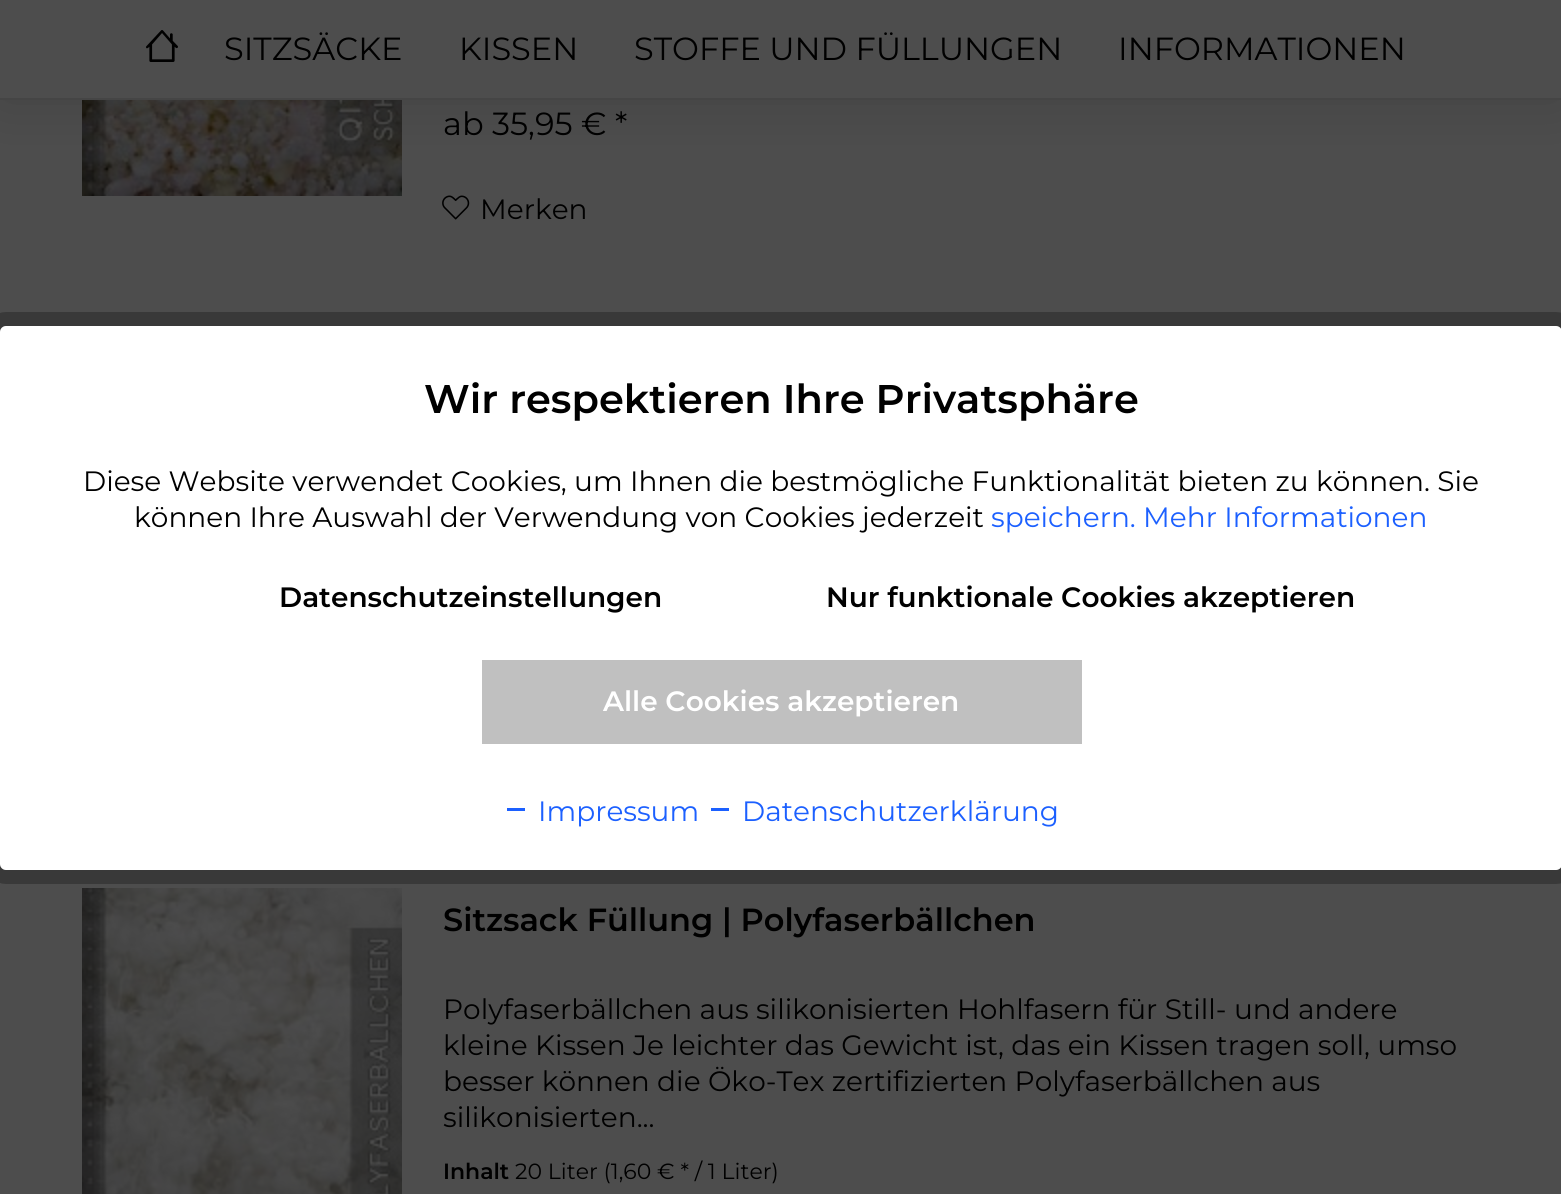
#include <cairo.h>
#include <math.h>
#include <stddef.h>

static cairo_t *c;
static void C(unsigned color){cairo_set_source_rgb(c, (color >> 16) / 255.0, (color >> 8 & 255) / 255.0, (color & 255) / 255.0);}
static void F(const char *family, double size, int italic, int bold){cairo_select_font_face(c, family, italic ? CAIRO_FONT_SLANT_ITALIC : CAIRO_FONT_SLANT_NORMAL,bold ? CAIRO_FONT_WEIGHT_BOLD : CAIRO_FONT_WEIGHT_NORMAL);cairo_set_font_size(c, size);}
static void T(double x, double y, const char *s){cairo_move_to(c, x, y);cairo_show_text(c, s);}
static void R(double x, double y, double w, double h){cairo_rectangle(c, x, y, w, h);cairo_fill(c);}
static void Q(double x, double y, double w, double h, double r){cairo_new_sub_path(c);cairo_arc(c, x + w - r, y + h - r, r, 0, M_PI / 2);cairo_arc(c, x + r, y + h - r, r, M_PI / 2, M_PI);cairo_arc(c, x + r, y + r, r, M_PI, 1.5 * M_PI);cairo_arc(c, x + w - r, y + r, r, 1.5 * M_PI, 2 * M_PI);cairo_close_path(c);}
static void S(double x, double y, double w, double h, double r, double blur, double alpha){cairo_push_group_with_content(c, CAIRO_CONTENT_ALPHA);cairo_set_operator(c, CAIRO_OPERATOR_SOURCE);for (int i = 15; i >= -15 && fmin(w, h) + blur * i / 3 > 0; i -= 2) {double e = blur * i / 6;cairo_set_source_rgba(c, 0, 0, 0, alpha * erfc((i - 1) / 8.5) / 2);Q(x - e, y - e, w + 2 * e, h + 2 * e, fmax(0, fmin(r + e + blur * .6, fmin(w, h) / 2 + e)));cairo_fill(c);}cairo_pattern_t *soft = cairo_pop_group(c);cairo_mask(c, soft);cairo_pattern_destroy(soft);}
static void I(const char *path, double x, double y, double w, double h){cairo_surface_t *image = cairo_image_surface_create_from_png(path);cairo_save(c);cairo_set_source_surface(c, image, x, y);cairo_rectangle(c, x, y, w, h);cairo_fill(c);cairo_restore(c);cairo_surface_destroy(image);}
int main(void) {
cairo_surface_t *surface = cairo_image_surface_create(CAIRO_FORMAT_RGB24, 1561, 1194);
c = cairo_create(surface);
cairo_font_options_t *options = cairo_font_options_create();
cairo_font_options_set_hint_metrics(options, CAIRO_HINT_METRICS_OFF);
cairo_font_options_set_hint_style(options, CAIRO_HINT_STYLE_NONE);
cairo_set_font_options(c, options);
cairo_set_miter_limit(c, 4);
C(0x4d4d4d);
cairo_paint(c);
I("2.png",82,100,320,96);
C(0x000000);
S(0,0,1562,100,0,30,.15);
C(0x4d4d4d);
R(0,0,1561,98);
C(0x454545);
R(0,98,1561,2);
I("1.png",146,30,32,32);
F("Montserrat Thin",32,0,0);
C(0x000000);
T(224,60,"SITZSÄCKE");
T(459,60,"KISSEN");
T(634,60,"STOFFE UND FÜLLUNGEN");
T(1118,60,"INFORMATIONEN");
T(443,135,"ab 35,95 € *");
I("3.png",442,195,28,25);
F("Montserrat Thin",28,0,0);
T(480,219,"Merken");
I("4.png",82,888,320,306);
F("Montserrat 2 Thin",32,0,0);
T(443,931,"Sitzsack Füllung | Polyfaserbällchen");
F("Montserrat Thin",28,0,0);
T(443,1019,"Polyfaserbällchen aus silikonisierten Hohlfasern für Still- und andere");
T(443,1055,"kleine Kissen Je leichter das Gewicht ist, das ein Kissen tragen soll, umso");
T(443,1091,"besser können die Öko-Tex zertifizierten Polyfaserbällchen aus");
T(443,1127,"silikonisierten...");
F("Montserrat 2 Thin",22,0,0);
T(443,1179,"Inhalt");
F("Montserrat Thin",22,0,0);
T(515,1179,"20 Liter (1,60 € * / 1 Liter)");
Q(-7,319,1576,558,13);
C(0x393939);
cairo_set_line_width(c,14);
cairo_stroke(c);
C(0xffffff);
Q(0,326,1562,544,6);
cairo_fill(c);
F("Montserrat 2 Thin",40,0,0);
C(0x000000);
T(424,413,"Wir respektieren Ihre Privatsphäre");
F("Montserrat Thin",28,0,0);
T(83,491,"Diese Website verwendet Cookies, um Ihnen die bestmögliche Funktionalität bieten zu können. Sie");
T(134,527,"können Ihre Auswahl der Verwendung von Cookies jederzeit");
C(0x1c60ff);
T(991,527,"speichern. Mehr Informationen");
F("Montserrat 2 Thin",28,0,0);
C(0x000000);
T(279,607,"Datenschutzeinstellungen");
T(826,607,"Nur funktionale Cookies akzeptieren");
C(0xc0c0c0);
R(482,660,600,84);
C(0xffffff);
T(603,711,"Alle Cookies akzeptieren");
F("Montserrat Thin",28,0,0);
C(0x1c60ff);
T(538,821,"Impressum");
R(507,808,18,3);
T(742,821,"Datenschutzerklärung");
R(711,808,18,3);
cairo_surface_write_to_png(surface, "o.png");
cairo_font_options_destroy(options);
cairo_destroy(c);
cairo_surface_destroy(surface);
return 0;
}
